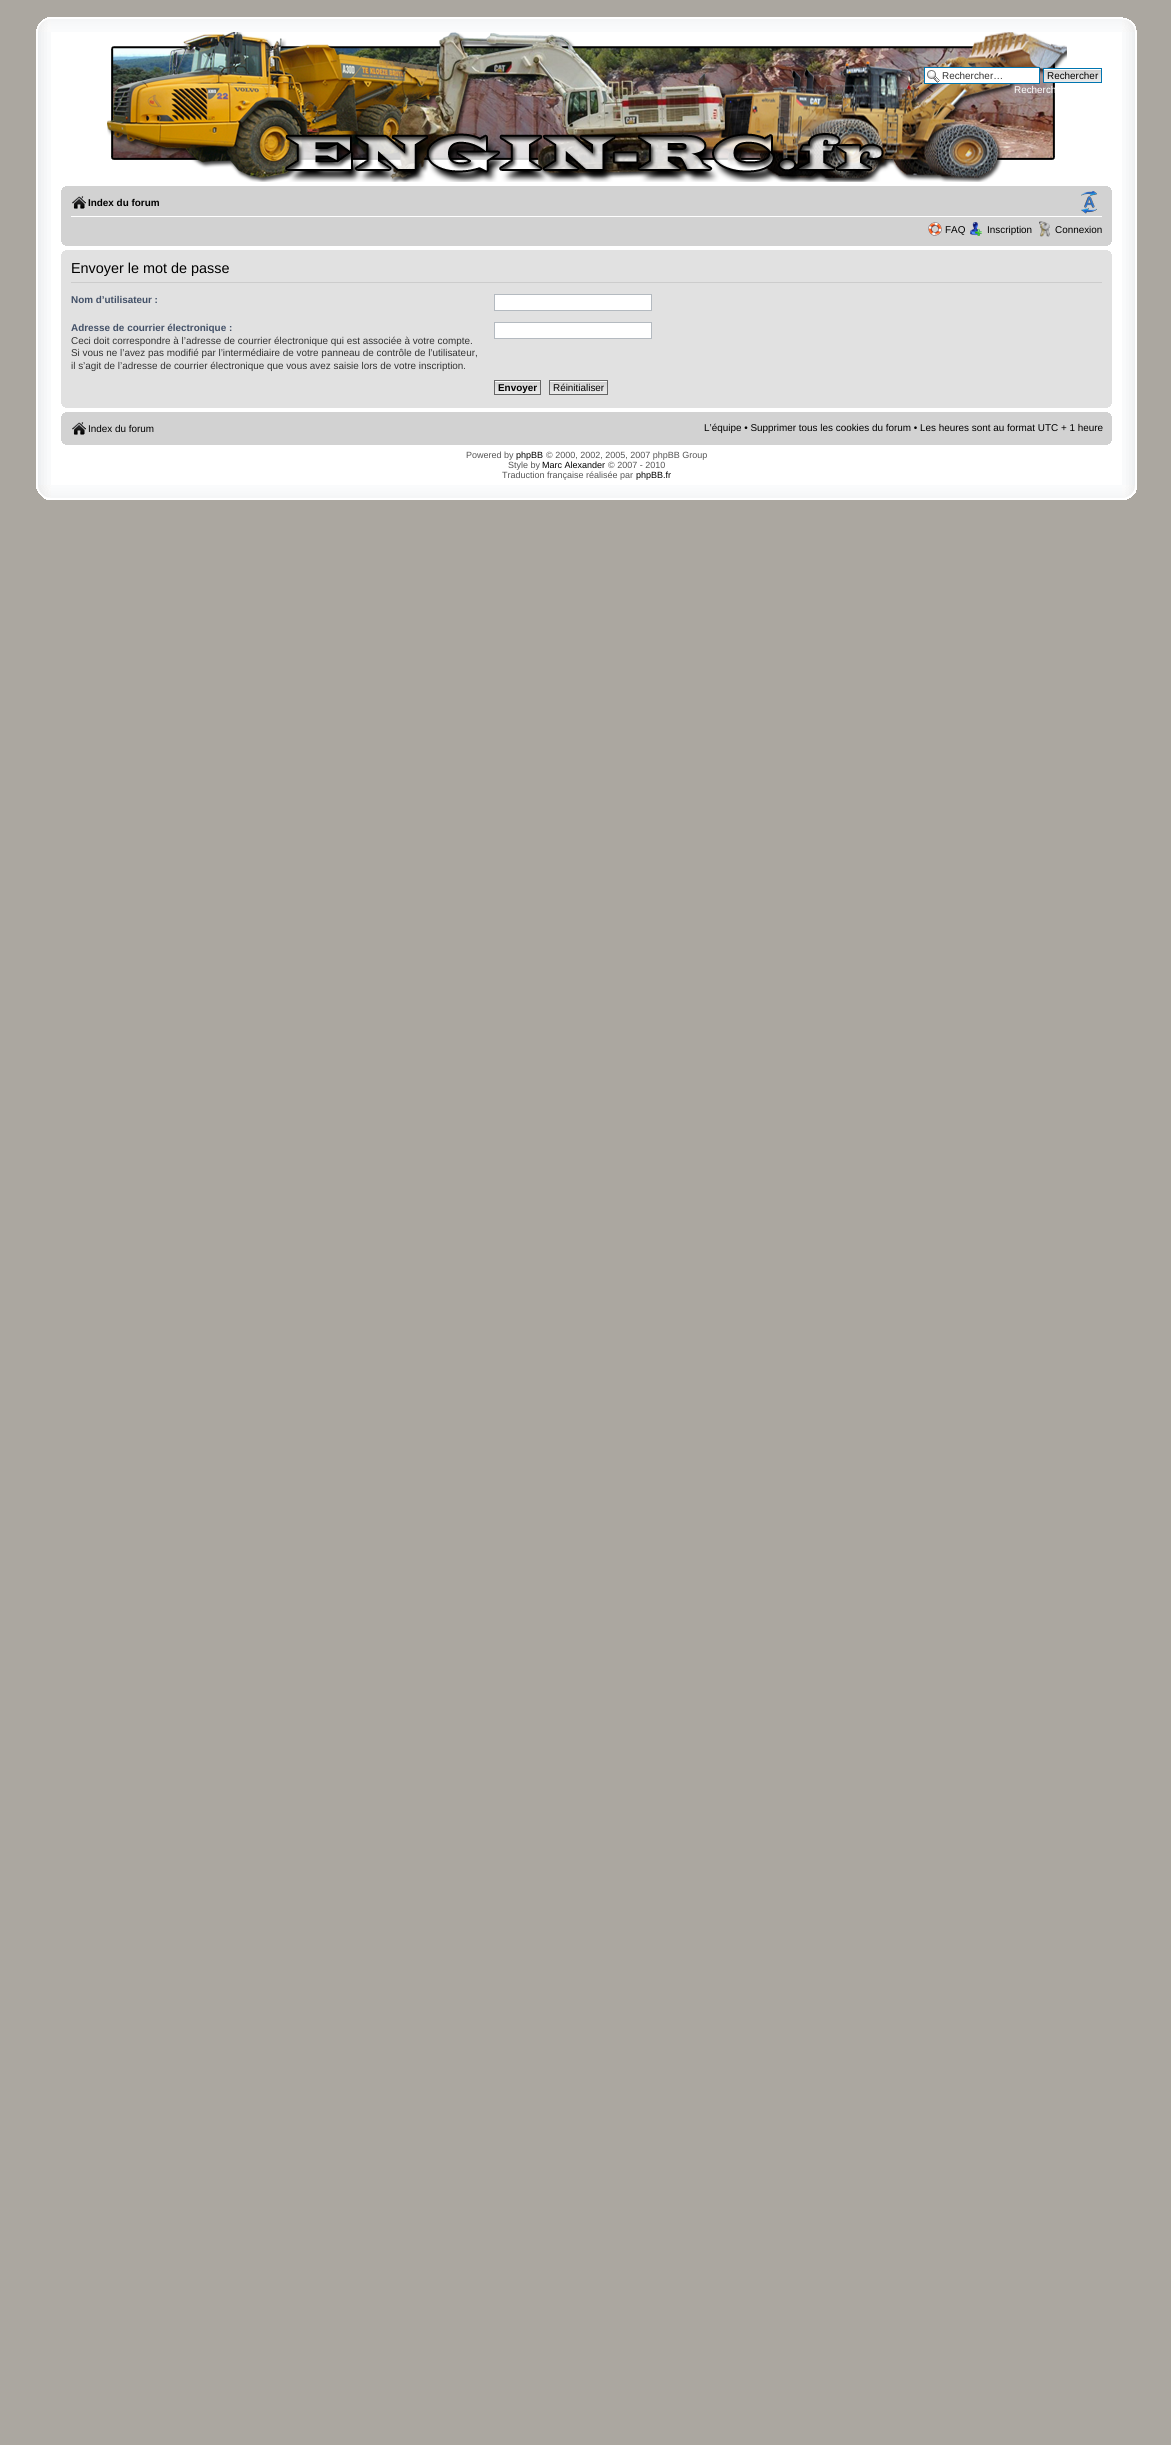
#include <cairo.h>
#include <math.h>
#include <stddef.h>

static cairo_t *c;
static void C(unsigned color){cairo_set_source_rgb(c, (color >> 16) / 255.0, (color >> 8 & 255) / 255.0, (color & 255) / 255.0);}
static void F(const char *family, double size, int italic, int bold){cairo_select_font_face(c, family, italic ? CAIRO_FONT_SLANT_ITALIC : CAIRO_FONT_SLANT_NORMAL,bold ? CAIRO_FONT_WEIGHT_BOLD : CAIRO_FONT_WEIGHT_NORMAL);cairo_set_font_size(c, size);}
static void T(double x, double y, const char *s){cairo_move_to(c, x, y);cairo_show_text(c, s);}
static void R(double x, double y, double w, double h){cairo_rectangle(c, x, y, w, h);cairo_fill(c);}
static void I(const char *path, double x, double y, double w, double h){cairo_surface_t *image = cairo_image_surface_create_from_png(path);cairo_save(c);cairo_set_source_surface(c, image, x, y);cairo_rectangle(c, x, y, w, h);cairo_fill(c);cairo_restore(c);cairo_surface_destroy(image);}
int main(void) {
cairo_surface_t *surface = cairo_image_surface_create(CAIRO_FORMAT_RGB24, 1171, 2445);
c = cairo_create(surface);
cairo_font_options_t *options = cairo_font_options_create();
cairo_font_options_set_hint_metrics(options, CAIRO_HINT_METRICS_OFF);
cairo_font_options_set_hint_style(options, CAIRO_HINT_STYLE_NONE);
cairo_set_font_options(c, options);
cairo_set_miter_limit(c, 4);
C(0xaba7a0);
cairo_paint(c);
I("1.png",36,17,15,15);
I("2.png",51,17,1071,15);
I("3.png",1122,17,15,15);
I("4.png",36,32,15,453);
I("5.png",1122,32,15,453);
C(0xffffff);
R(51,32,1071,453);
I("6.png",107,32,960,150);
R(925,68,114,15);
I("7.png",927,70,13,13);
cairo_rectangle(c,924.5,67.5,115,16);
C(0x0075b0);
cairo_set_line_width(c,1);
cairo_stroke(c);
F("Liberation Sans",9.9,0,0);
C(0x333333);
T(942,79,"Rechercher…");
I("8.png",1044,69,57,13);
cairo_rectangle(c,1043.5,68.5,58,14);
C(0x0075b0);
cairo_stroke(c);
C(0x000000);
T(1047,79,"Rechercher");
C(0xffffff);
T(1014,93,"Recherch");
C(0xd2d2d2);
R(61,186,1051,60);
I("9.png",61,186,4,4);
I("10.png",1108,186,4,4);
C(0xffffff);
R(71,216,1031,1);
I("11.png",72,196,14,13);
F("Liberation Sans",9.9,0,1);
C(0x000000);
T(88,206,"Index du forum");
I("12.png",1081,191,16,23);
I("13.png",928,222,14,14);
F("Liberation Sans",9.9,0,0);
T(945,233,"FAQ");
I("14.png",970,222,12,14);
T(987,233,"Inscription");
I("15.png",1039,221,11,16);
T(1055,233,"Connexion");
I("16.png",61,242,4,4);
I("17.png",1108,242,4,4);
C(0xe1e1e1);
R(61,250,1051,158);
I("18.png",61,250,4,4);
I("19.png",1108,250,4,4);
C(0xcccccc);
R(71,282,1031,1);
F("Liberation Sans",14.4,0,0);
C(0x000000);
T(71,273,"Envoyer le mot de passe");
F("Liberation Sans",9.9,0,1);
C(0x425067);
T(71,303,"Nom d’utilisateur :");
C(0xffffff);
cairo_rectangle(c,494.5,294.5,157,16);
cairo_fill_preserve(c);
C(0xb4bac0);
cairo_stroke(c);
C(0x425067);
T(71,331,"Adresse de courrier électronique :");
F("Liberation Sans",9.9,0,0);
C(0x333333);
T(71,344,"Ceci doit correspondre à l’adresse de courrier électronique qui est associée à votre compte.");
T(71,356,"Si vous ne l’avez pas modifié par l’intermédiaire de votre panneau de contrôle de l’utilisateur,");
T(71,369,"il s’agit de l’adresse de courrier électronique que vous avez saisie lors de votre inscription.");
C(0xffffff);
cairo_rectangle(c,494.5,322.5,157,16);
cairo_fill_preserve(c);
C(0xb4bac0);
cairo_stroke(c);
I("20.png",495,381,45,13);
cairo_rectangle(c,494.5,380.5,46,14);
C(0x666666);
cairo_stroke(c);
F("Liberation Sans",9.9,0,1);
C(0x000000);
T(498,391,"Envoyer");
I("8.png",550,381,57,13);
cairo_rectangle(c,549.5,380.5,58,14);
C(0x666666);
cairo_stroke(c);
F("Liberation Sans",9.9,0,0);
C(0x000000);
T(553,391,"Réinitialiser");
I("21.png",61,404,4,4);
I("22.png",1108,404,4,4);
C(0xd2d2d2);
R(61,412,1051,33);
I("9.png",61,412,4,4);
I("10.png",1108,412,4,4);
I("11.png",72,422,14,13);
C(0x000000);
T(88,432,"Index du forum");
T(704,431,"L’équipe • Supprimer tous les cookies du forum • Les heures sont au format UTC + 1 heure");
I("16.png",61,441,4,4);
I("17.png",1108,441,4,4);
F("Liberation Sans",9,0,0);
C(0x555555);
T(466,458,"Powered by");
C(0x000000);
T(516,458,"phpBB");
C(0x555555);
T(546,458,"© 2000, 2002, 2005, 2007 phpBB Group");
T(508,468,"Style by");
C(0x000000);
T(542,468,"Marc Alexander");
C(0x555555);
T(608,468,"© 2007 - 2010");
T(502,478,"Traduction française réalisée par");
C(0x000000);
T(636,478,"phpBB.fr");
I("23.png",36,485,15,15);
I("24.png",51,485,1071,15);
I("25.png",1122,485,15,15);
cairo_surface_write_to_png(surface, "o.png");
cairo_font_options_destroy(options);
cairo_destroy(c);
cairo_surface_destroy(surface);
return 0;
}
